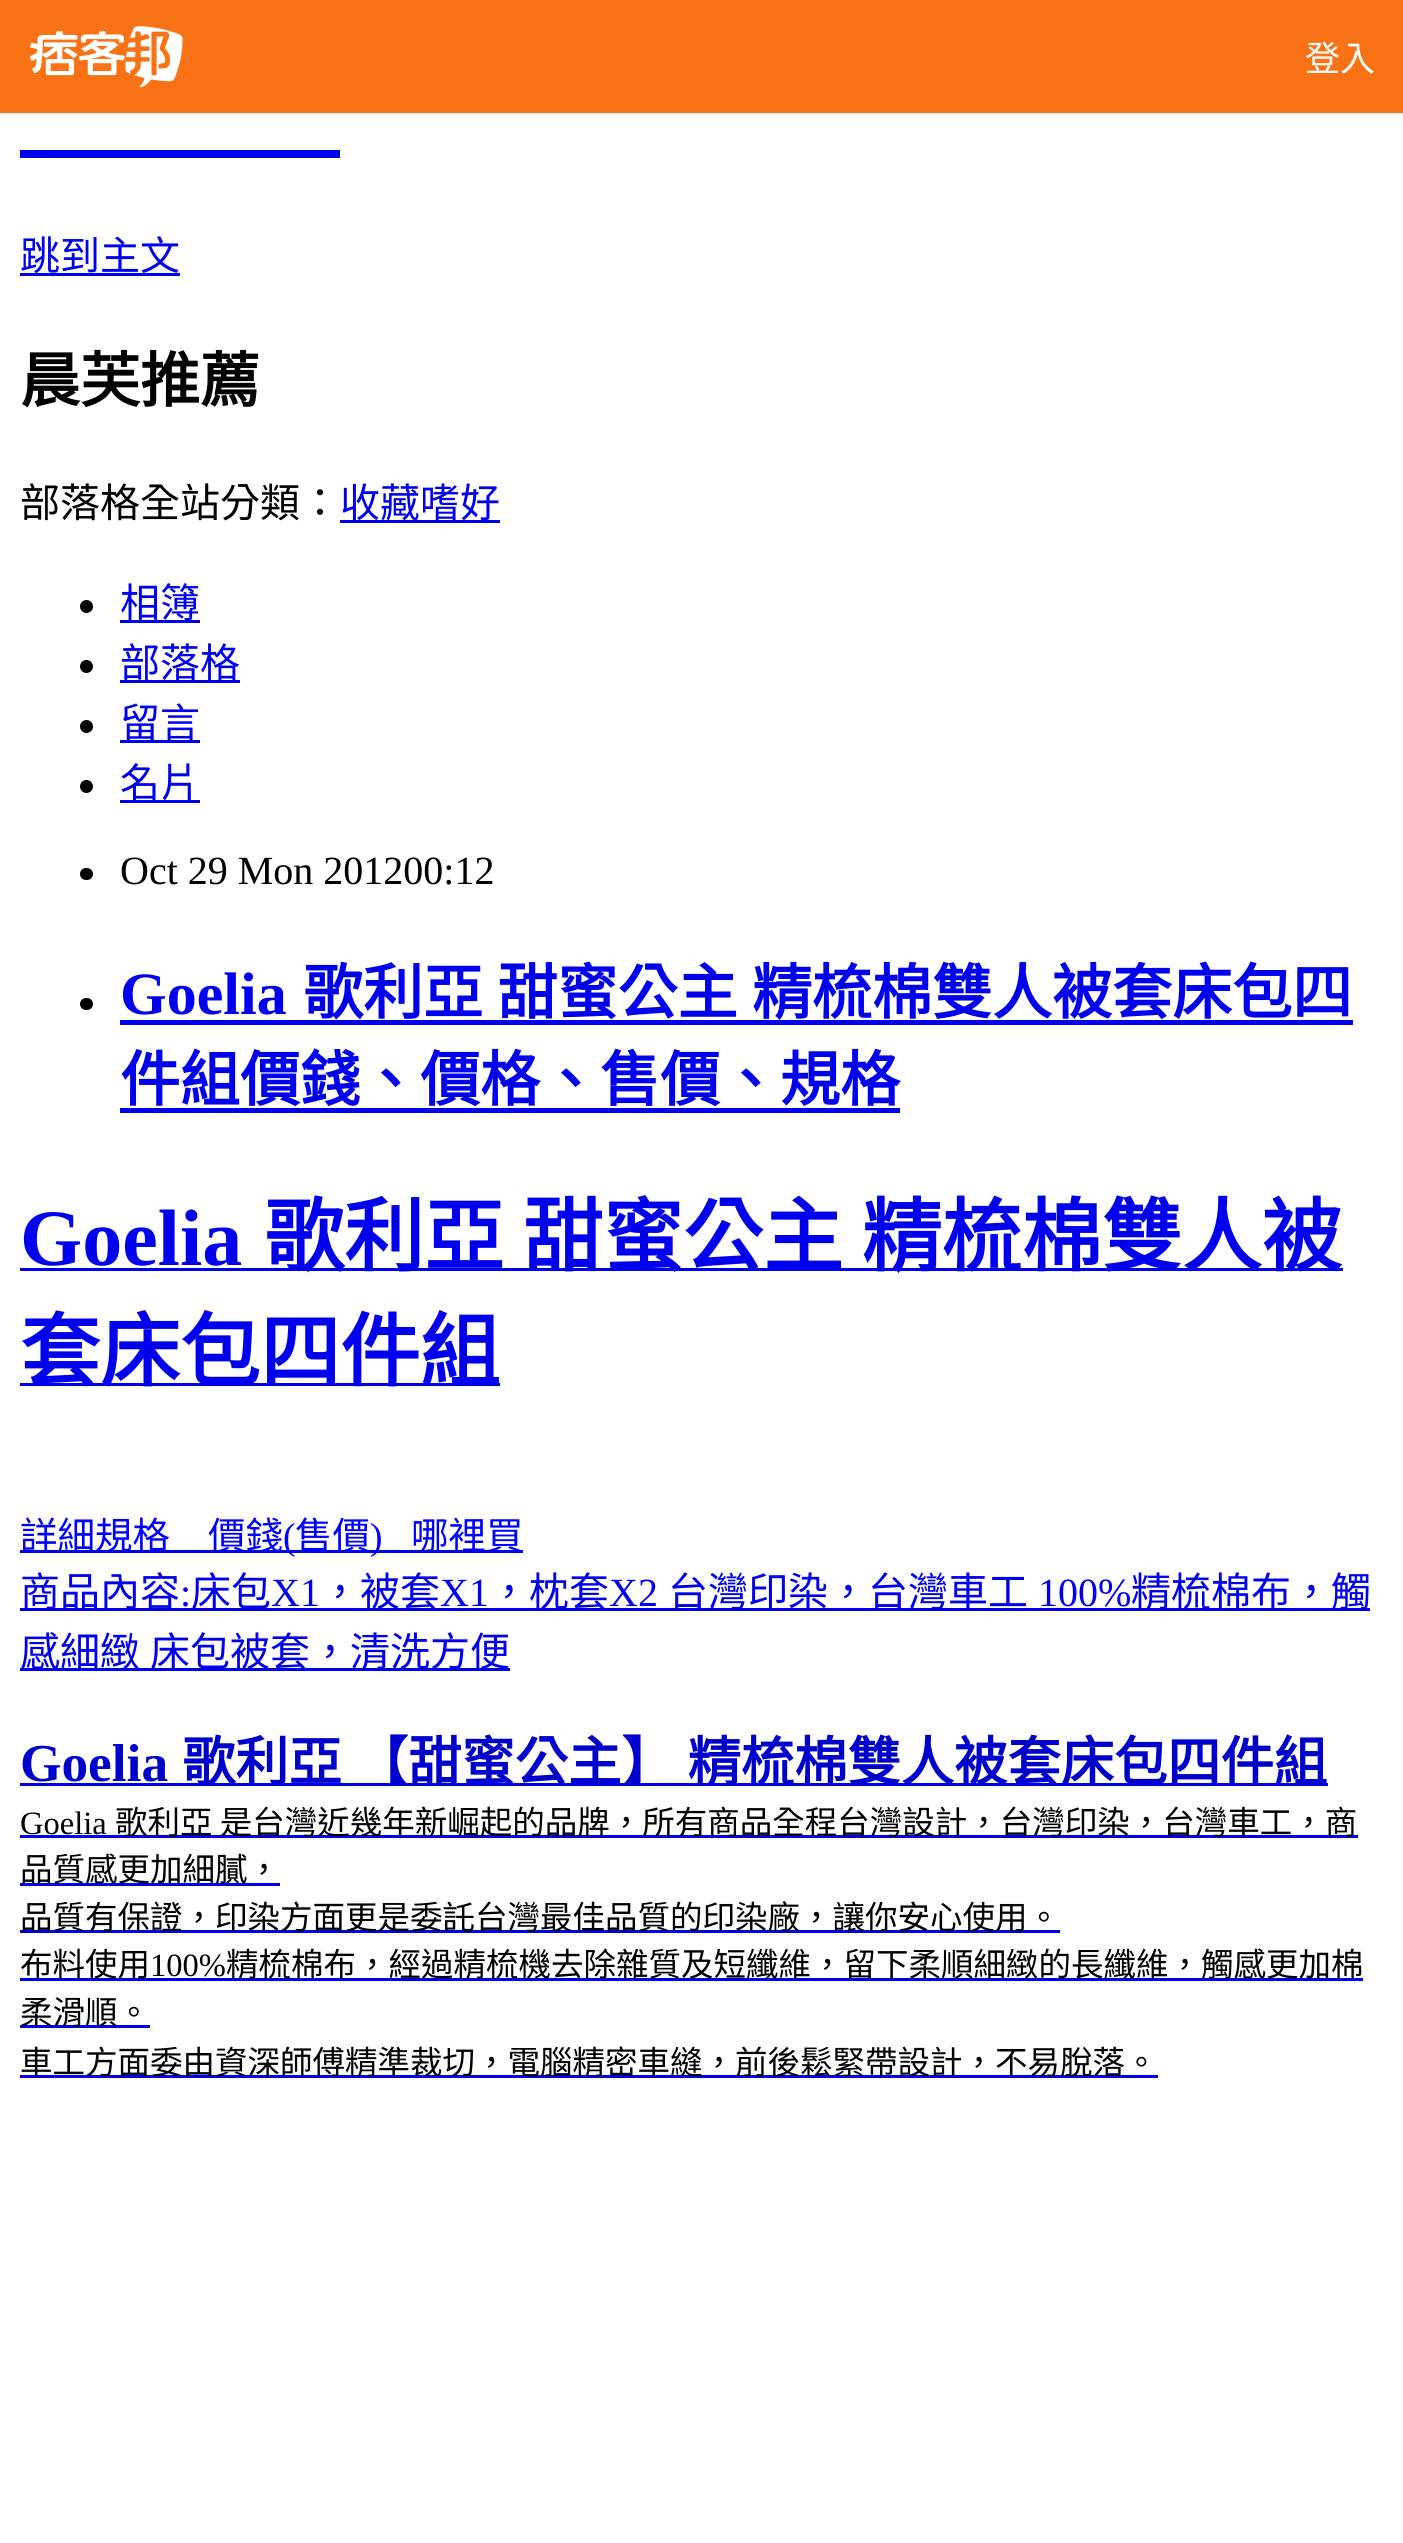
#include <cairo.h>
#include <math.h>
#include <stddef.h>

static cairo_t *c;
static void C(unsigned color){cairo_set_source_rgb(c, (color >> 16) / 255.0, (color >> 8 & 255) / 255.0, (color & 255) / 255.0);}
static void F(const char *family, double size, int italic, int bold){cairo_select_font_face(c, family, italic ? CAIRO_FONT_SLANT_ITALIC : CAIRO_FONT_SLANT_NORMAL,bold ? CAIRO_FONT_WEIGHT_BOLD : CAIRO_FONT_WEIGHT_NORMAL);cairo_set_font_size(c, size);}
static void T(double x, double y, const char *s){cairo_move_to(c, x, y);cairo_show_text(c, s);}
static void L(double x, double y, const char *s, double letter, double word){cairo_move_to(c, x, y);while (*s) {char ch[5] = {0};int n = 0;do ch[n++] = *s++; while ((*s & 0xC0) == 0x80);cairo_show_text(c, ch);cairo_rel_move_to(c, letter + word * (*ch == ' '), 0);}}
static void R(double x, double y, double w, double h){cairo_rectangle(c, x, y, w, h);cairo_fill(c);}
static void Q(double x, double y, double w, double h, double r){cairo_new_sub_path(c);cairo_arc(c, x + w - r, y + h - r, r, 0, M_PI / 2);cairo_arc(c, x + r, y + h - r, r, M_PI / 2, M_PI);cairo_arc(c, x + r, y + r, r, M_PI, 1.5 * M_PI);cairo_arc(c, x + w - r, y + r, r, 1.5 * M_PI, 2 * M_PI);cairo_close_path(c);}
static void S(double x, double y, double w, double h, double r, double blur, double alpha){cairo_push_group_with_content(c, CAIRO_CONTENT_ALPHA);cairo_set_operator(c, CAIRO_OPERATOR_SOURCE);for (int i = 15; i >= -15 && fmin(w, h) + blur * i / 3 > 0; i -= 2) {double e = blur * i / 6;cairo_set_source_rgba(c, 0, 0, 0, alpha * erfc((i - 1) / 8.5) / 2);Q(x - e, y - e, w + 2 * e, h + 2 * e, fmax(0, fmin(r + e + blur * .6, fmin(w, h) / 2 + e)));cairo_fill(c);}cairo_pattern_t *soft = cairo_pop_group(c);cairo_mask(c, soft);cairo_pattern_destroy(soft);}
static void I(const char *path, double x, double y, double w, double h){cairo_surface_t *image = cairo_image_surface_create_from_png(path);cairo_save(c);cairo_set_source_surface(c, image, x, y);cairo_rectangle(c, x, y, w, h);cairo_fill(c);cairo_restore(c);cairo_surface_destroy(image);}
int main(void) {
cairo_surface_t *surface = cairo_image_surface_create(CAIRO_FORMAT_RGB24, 1403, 2543);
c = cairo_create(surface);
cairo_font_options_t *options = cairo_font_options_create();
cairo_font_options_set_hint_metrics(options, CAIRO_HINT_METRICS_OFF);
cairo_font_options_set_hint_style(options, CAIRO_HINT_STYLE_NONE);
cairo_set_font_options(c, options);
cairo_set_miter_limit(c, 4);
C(0xffffff);
cairo_paint(c);
C(0x000000);
S(0,3,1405,112,0,2.5,.05);
C(0xf97316);
R(0,0,1403,113);
I("1.png",30,26,153,62);
F("Noto Sans CJK TC",35,0,0);
C(0xffffff);
T(1305,71,"登入");
C(0x0000ee);
R(20,150,320,8);
R(20,273,160,3);
F("Noto Sans CJK TC",40,0,0);
T(20,270,"跳到主文");
F("Noto Sans CJK TC",60,0,1);
C(0x000000);
T(20,402,"晨芙推薦");
F("Noto Sans CJK TC",40,0,0);
T(20,517,"部落格全站分類：");
C(0x0000ee);
R(340,520,160,3);
T(340,517,"收藏嗜好");
C(0x000000);
cairo_new_path(c);
cairo_arc(c,86.5,606.5,6.5,0,2 * M_PI);
cairo_fill(c);
C(0x0000ee);
R(120,620,80,3);
T(120,617,"相簿");
C(0x000000);
cairo_new_path(c);
cairo_arc(c,86.5,666.5,6.5,0,2 * M_PI);
cairo_fill(c);
C(0x0000ee);
R(120,680,120,3);
T(120,677,"部落格");
C(0x000000);
cairo_new_path(c);
cairo_arc(c,86.5,726.5,6.5,0,2 * M_PI);
cairo_fill(c);
C(0x0000ee);
R(120,740,80,3);
T(120,737,"留言");
C(0x000000);
cairo_new_path(c);
cairo_arc(c,86.5,786.5,6.5,0,2 * M_PI);
cairo_fill(c);
C(0x0000ee);
R(120,800,80,3);
T(120,797,"名片");
C(0x000000);
Q(80,868,13,12,6);
cairo_fill(c);
F("Liberation Serif",40,0,0);
T(120,884,"Oct 29 Mon 201200:12");
Q(80,998,13,12,6);
cairo_fill(c);
F("Liberation Serif",60,0,1);
C(0x0000ee);
T(120,1014,"Goelia");
R(120,1020,1233,5);
F("Noto Sans CJK TC",60,0,1);
L(303,1014,"歌利亞 甜蜜公主 精梳棉雙人被套床包四",0,1);
T(120,1101,"件組價錢、價格、售價、規格");
R(120,1108,780,5);
F("Liberation Serif",80,0,1);
T(20,1265,"Goelia");
R(20,1268,1323,3);
F("Noto Sans CJK TC",80,0,1);
L(264,1265,"歌利亞 甜蜜公主 精梳棉雙人被",0,1);
R(20,1383,480,3);
T(20,1380,"套床包四件組");
R(20,1550,503,3);
F("Noto Sans CJK TC",37.5,0,0);
C(0x0000ff);
T(20,1549,"詳細規格");
T(208,1549,"價錢");
F("Liberation Serif",37.5,0,0);
T(283,1549,"(");
F("Noto Sans CJK TC",37.5,0,0);
T(295,1549,"售價");
F("Liberation Serif",37.5,0,0);
T(370,1549,")");
F("Noto Sans CJK TC",37.5,0,0);
T(411,1549,"哪裡買");
C(0x0000ee);
R(20,1608,1350,3);
F("Noto Sans CJK TC",40,0,0);
T(20,1606,"商品內容");
F("Liberation Serif",40,0,0);
T(180,1606,":");
F("Noto Sans CJK TC",40,0,0);
T(191,1606,"床包");
F("Liberation Serif",40,0,0);
T(271,1606,"X1");
F("Noto Sans CJK TC",40,0,0);
T(320,1606,"，被套");
F("Liberation Serif",40,0,0);
T(440,1606,"X1");
F("Noto Sans CJK TC",40,0,0);
T(489,1606,"，枕套");
F("Liberation Serif",40,0,0);
T(609,1606,"X2");
F("Noto Sans CJK TC",40,0,0);
T(668,1606,"台灣印染，台灣車工");
F("Liberation Serif",40,0,0);
T(1038,1606,"100%");
F("Noto Sans CJK TC",40,0,0);
T(1131,1606,"精梳棉布，觸");
R(20,1668,490,3);
L(20,1666,"感細緻 床包被套，清洗方便",0,1);
F("Liberation Serif",53.3,0,1);
C(0x0000cc);
T(20,1781,"Goelia");
C(0x0000ee);
R(20,1783,1308,3);
F("Noto Sans CJK TC",53.3,0,1);
C(0x0000cc);
L(182,1781,"歌利亞 【甜蜜公主】 精梳棉雙人被套床包四件組",0,1);
F("Liberation Serif",32.5,0,0);
C(0x000000);
T(20,1834,"Goelia");
C(0x0000ee);
R(20,1835,1338,3);
F("Noto Sans CJK TC",32.5,0,0);
C(0x000000);
T(115,1834,"歌利亞 是台灣近幾年新崛起的品牌，所有商品全程台灣設計，台灣印染，台灣車工，商");
C(0x0000ee);
R(20,1883,260,3);
C(0x000000);
T(20,1881,"品質感更加細膩，");
C(0x0000ee);
R(20,1930,1040,3);
C(0x000000);
T(20,1929,"品質有保證，印染方面更是委託台灣最佳品質的印染廠，讓你安心使用。");
C(0x0000ee);
R(20,1978,1343,3);
C(0x000000);
T(20,1976,"布料使用");
F("Liberation Serif",32.5,0,0);
T(150,1976,"100%");
F("Noto Sans CJK TC",32.5,0,0);
T(226,1976,"精梳棉布，經過精梳機去除雜質及短纖維，留下柔順細緻的長纖維，觸感更加棉");
C(0x0000ee);
R(20,2025,130,3);
C(0x000000);
T(20,2024,"柔滑順。");
C(0x0000ee);
R(20,2075,1138,3);
C(0x000000);
T(20,2074,"車工方面委由資深師傅精準裁切，電腦精密車縫，前後鬆緊帶設計，不易脫落。");
cairo_surface_write_to_png(surface, "o.png");
cairo_font_options_destroy(options);
cairo_destroy(c);
cairo_surface_destroy(surface);
return 0;
}
